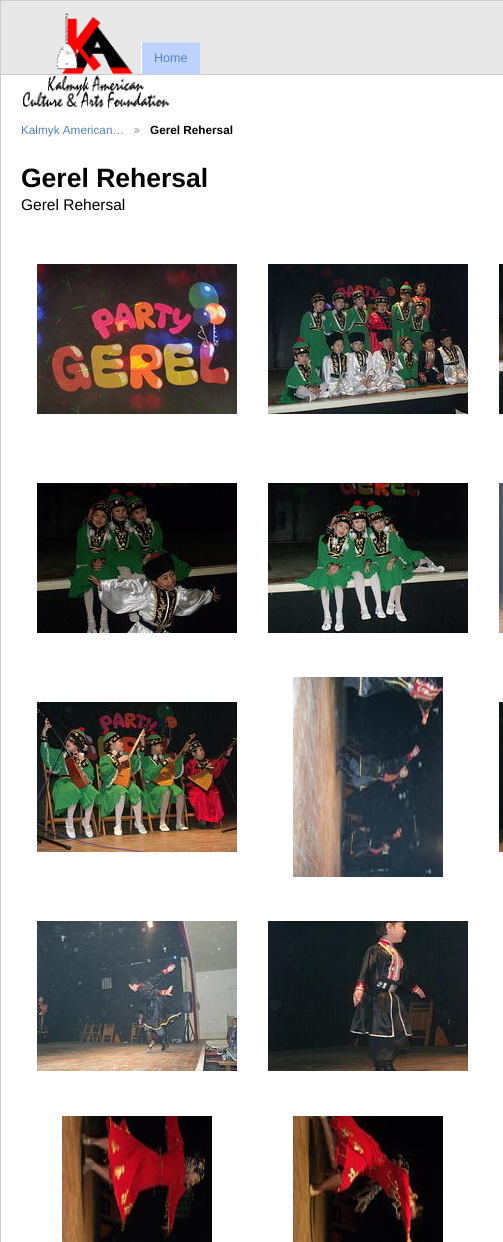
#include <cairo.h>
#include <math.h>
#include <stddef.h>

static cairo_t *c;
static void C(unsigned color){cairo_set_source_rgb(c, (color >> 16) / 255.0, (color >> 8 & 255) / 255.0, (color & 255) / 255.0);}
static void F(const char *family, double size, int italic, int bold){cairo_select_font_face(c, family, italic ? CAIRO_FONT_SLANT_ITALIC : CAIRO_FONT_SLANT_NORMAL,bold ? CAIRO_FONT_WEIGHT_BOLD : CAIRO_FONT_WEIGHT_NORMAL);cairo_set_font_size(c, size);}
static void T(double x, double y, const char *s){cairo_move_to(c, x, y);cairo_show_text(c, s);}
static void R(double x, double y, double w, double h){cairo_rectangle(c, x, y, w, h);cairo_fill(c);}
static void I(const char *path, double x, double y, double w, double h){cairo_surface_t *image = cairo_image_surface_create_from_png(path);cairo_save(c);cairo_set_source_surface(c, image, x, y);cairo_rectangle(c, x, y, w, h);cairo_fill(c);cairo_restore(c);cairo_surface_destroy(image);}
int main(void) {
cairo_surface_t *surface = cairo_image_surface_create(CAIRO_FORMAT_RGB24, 503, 1242);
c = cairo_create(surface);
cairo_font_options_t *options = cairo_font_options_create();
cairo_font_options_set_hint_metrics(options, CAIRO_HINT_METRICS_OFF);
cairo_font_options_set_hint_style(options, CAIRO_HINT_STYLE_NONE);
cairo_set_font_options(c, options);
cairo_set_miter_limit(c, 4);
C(0xffffff);
cairo_paint(c);
C(0xcccccc);
R(0,0,503,1);
R(0,0,1,1242);
C(0xe8e8e8);
R(1,1,502,73);
C(0xcccccc);
R(1,74,502,1);
I("1.png",23,13,147,96);
C(0xbdd2ff);
R(142,43,58,31);
C(0xcfdeff);
R(141,42,59,1);
C(0xffffff);
R(141,42,1,32);
F("Liberation Sans",12.5,0,0);
C(0x5382bf);
T(154,62,"Home");
F("Liberation Sans",11.75,0,0);
T(21,134,"Kalmyk American…");
I("2.png",134,128,6,5);
F("Liberation Sans",11.75,0,1);
C(0x000000);
T(150,134,"Gerel Rehersal");
F("Liberation Sans",26.5,0,1);
T(21,187,"Gerel Rehersal");
F("Liberation Sans",15.5,0,0);
T(21,210,"Gerel Rehersal");
I("3.png",37,264,200,150);
I("4.png",268,264,200,150);
I("5.png",499,264,4,150);
I("6.png",37,483,200,150);
I("7.png",268,483,200,150);
I("8.png",499,483,4,150);
I("9.png",37,702,200,150);
I("10.png",293,677,150,200);
I("11.png",499,702,4,150);
I("12.png",37,921,200,150);
I("13.png",268,921,200,150);
I("14.png",62,1116,150,126);
I("15.png",293,1116,150,126);
cairo_surface_write_to_png(surface, "o.png");
cairo_font_options_destroy(options);
cairo_destroy(c);
cairo_surface_destroy(surface);
return 0;
}
